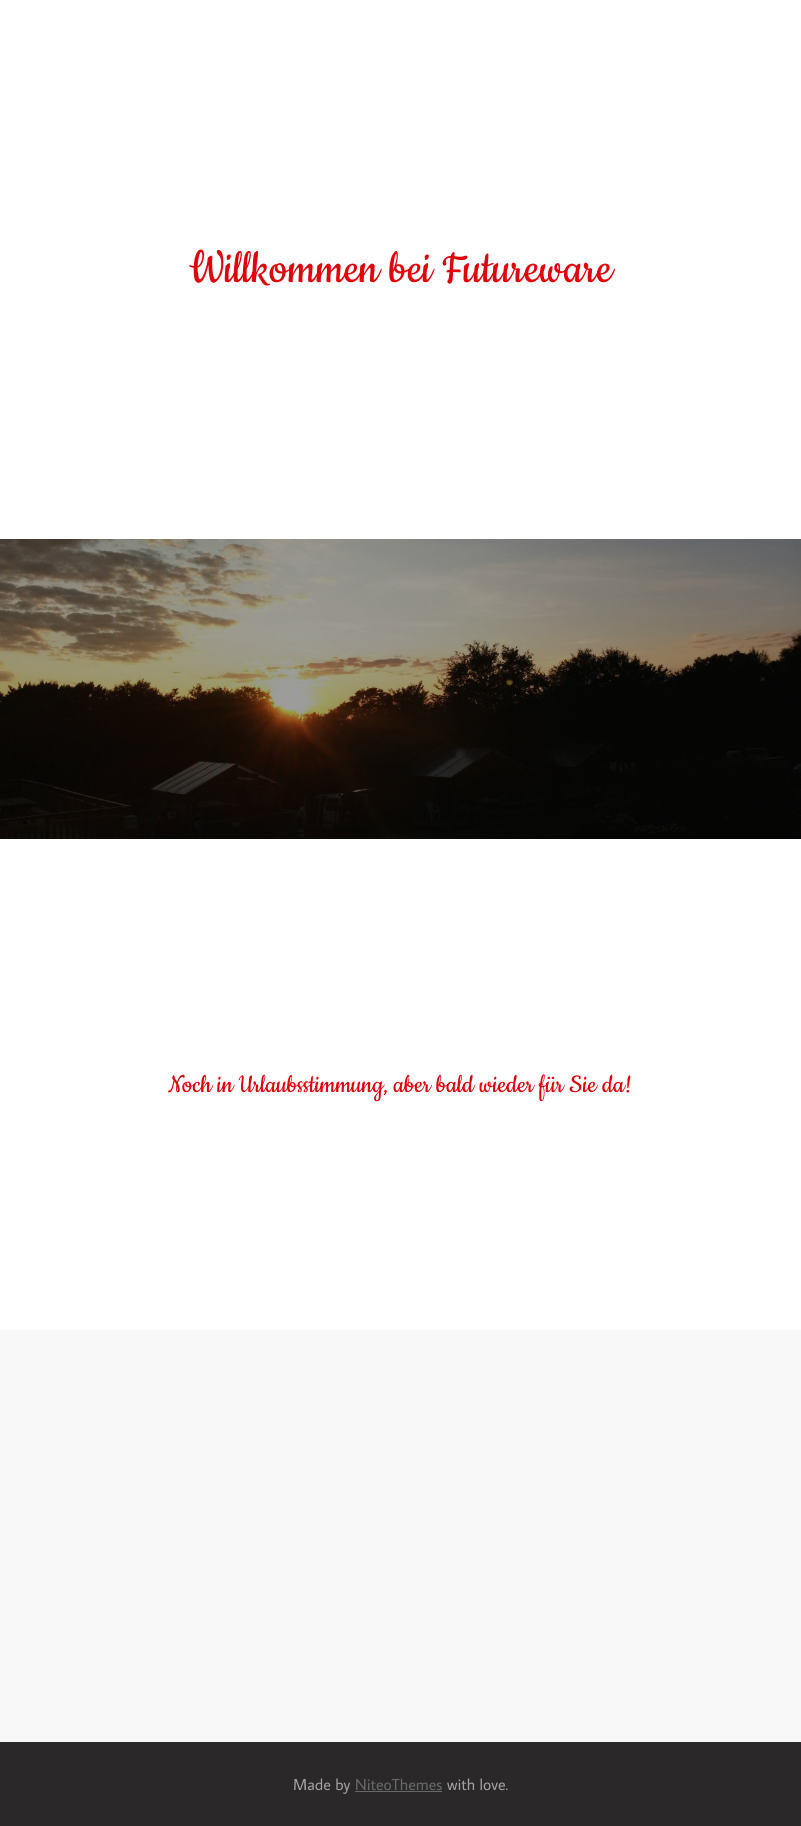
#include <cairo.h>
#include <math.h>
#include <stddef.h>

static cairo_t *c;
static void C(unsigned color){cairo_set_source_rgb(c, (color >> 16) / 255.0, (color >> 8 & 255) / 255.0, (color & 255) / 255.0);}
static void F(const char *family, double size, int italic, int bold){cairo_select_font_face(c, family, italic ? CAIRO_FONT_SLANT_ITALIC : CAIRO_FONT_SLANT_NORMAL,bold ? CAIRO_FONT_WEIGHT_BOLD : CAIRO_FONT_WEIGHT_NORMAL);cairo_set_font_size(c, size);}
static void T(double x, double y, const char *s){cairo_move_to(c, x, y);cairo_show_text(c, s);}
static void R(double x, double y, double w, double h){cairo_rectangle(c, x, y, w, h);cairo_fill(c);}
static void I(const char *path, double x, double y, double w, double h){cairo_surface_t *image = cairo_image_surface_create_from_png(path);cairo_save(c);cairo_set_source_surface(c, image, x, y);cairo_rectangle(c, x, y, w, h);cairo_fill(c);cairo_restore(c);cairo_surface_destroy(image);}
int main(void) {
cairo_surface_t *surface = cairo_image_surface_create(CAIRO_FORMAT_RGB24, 801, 1826);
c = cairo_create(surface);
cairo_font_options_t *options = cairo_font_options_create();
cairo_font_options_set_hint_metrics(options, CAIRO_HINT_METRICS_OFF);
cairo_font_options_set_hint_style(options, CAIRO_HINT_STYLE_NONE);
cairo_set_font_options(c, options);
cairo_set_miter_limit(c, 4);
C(0xffffff);
cairo_paint(c);
F("Cookie",51.75,0,0);
C(0xe2040b);
T(189,282,"Willkommen bei Futureware");
I("1.png",0,539,801,300);
F("Cookie",28.75,0,0);
T(168,1092,"Noch in Urlaubsstimmung, aber bald wieder für Sie da!");
C(0xf8f8f8);
R(0,1330,801,412);
C(0x2a2829);
R(0,1742,801,84);
F("Average Sans",16,0,0);
C(0xa3a1a2);
T(293,1790,"Made by");
C(0x686868);
T(355,1790,"NiteoThemes");
R(355,1791,87,1);
C(0xa3a1a2);
T(447,1790,"with love.");
cairo_surface_write_to_png(surface, "o.png");
cairo_font_options_destroy(options);
cairo_destroy(c);
cairo_surface_destroy(surface);
return 0;
}
